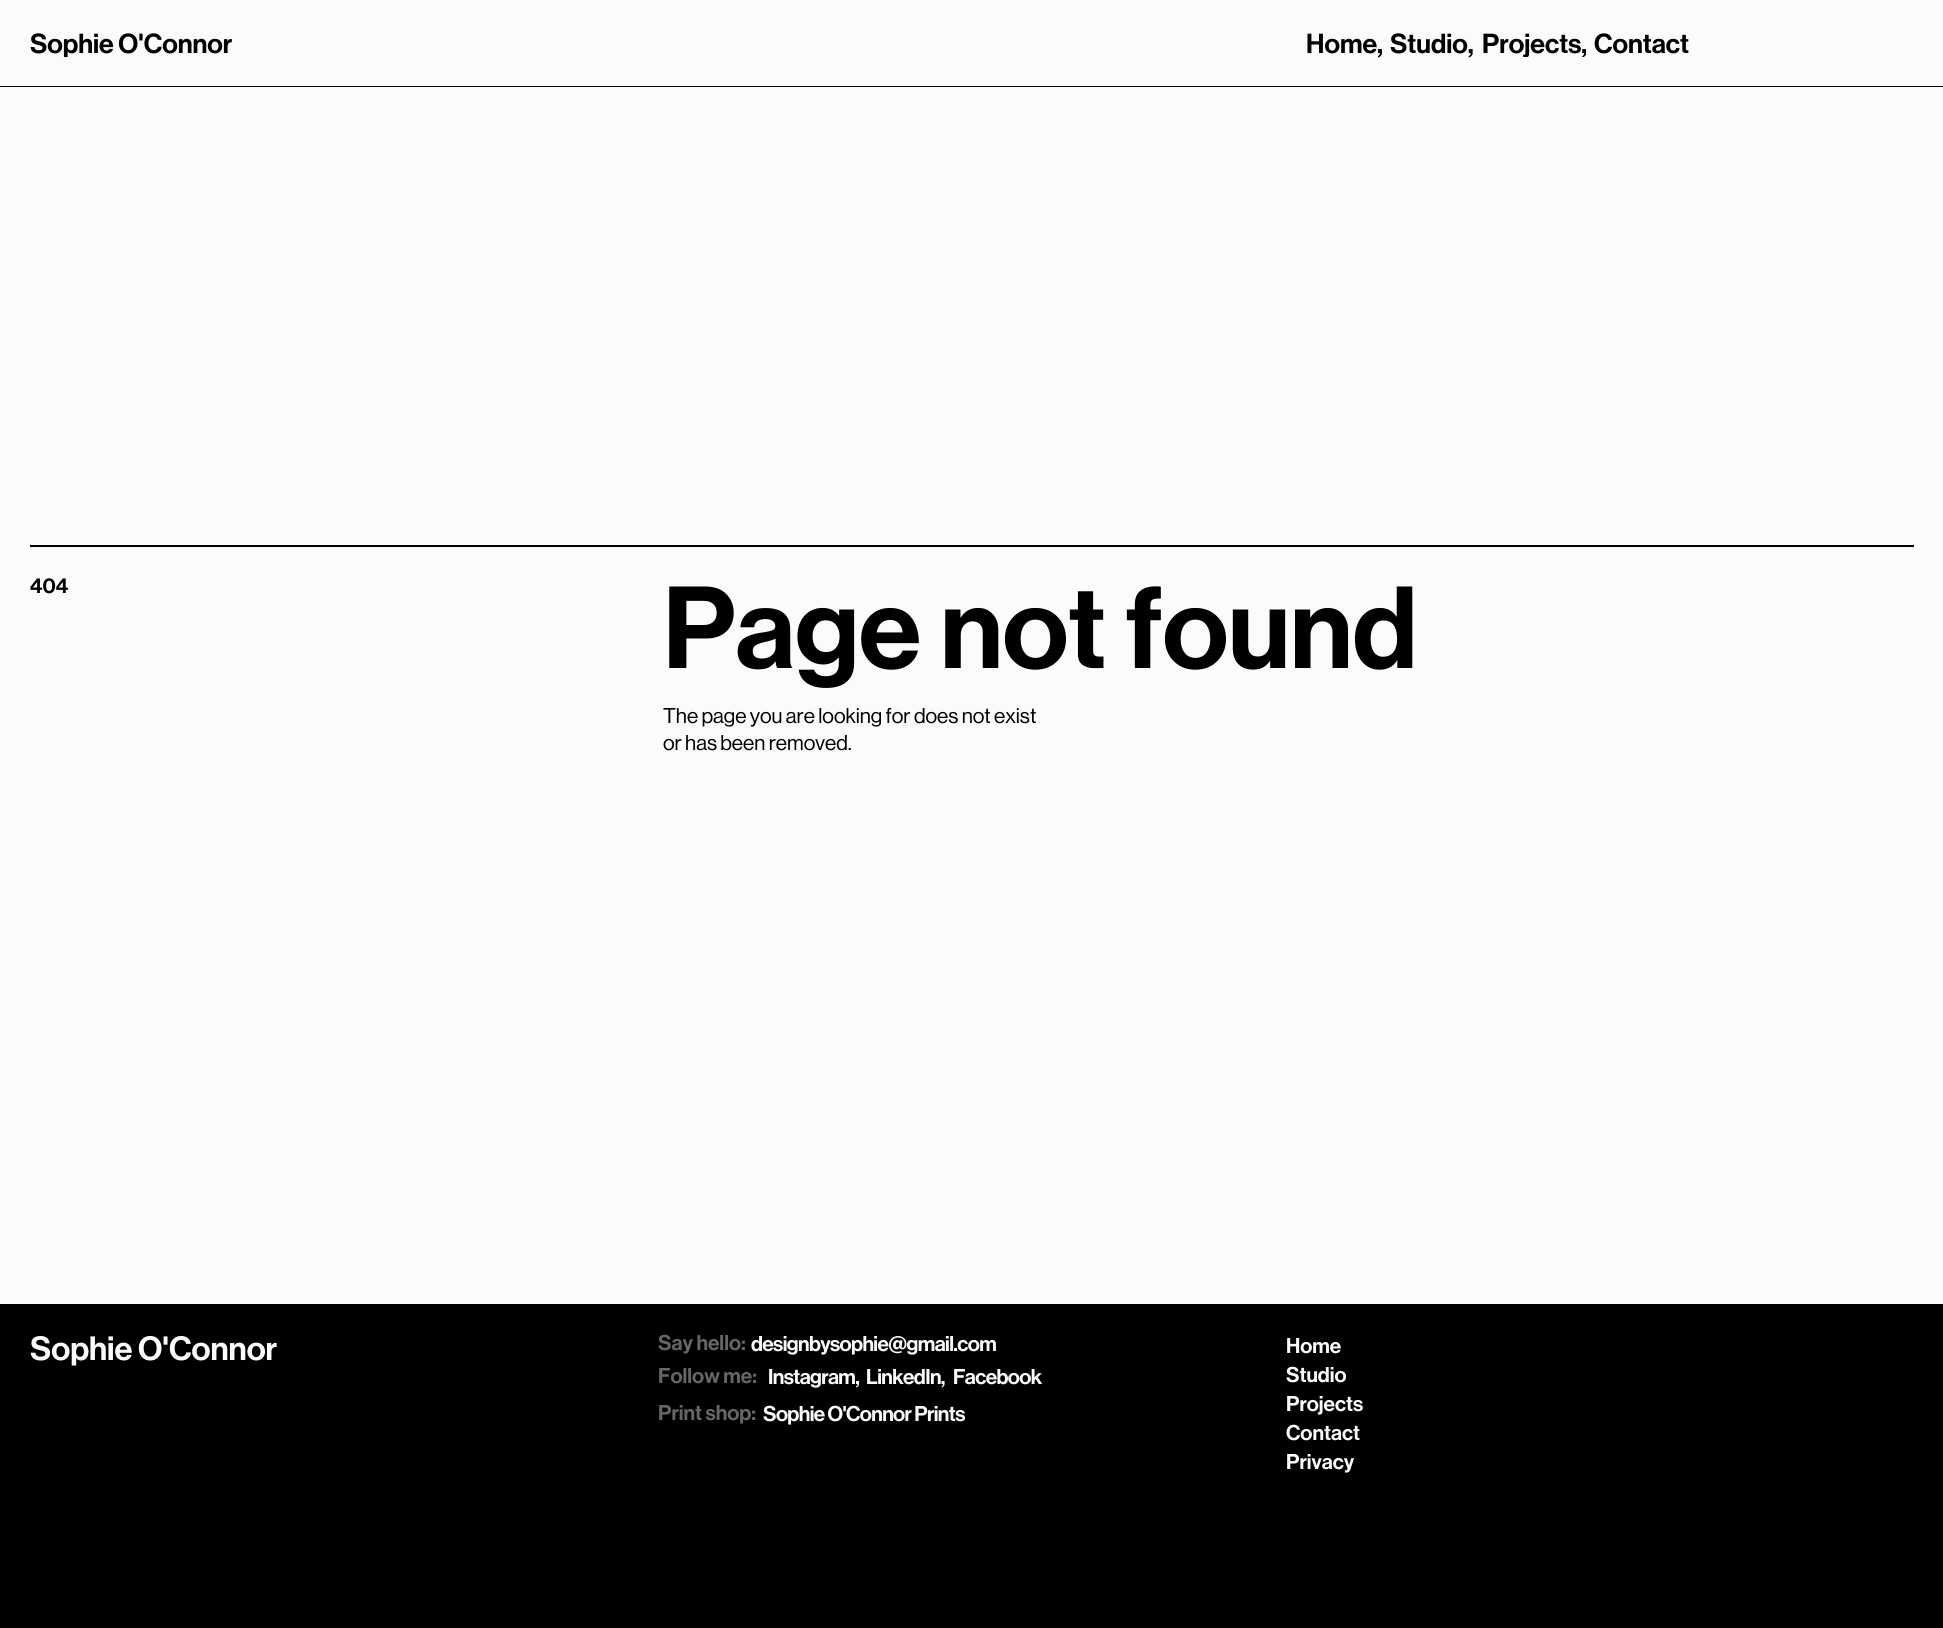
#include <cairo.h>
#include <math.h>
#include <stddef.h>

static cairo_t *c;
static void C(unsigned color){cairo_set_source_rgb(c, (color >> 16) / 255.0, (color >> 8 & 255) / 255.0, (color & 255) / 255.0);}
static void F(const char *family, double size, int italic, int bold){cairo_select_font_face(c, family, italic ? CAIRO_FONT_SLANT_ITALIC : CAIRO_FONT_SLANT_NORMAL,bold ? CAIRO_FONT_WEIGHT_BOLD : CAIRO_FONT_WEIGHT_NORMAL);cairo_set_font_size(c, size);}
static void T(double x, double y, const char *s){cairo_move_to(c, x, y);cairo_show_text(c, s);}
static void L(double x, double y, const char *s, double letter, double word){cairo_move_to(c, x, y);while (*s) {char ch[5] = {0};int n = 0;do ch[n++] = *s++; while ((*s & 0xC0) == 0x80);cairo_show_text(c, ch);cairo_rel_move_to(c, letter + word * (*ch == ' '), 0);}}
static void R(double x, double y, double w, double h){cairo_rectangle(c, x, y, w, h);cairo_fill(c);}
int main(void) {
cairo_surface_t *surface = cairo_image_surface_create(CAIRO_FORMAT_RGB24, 1943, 1628);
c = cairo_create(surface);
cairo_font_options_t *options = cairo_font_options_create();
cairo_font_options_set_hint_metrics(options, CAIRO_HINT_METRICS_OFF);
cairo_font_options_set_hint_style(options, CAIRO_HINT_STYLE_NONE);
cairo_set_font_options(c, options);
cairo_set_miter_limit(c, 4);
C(0xfbfbfb);
cairo_paint(c);
cairo_save(c);
cairo_rectangle(c,30,30,608,27);
cairo_clip(c);
F("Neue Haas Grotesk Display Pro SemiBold",27,0,0);
C(0x000000);
T(30,53,"Sophie O'Connor");
cairo_restore(c);
F("Neue Haas Grotesk Display Pro SemiBold",27,0,0);
C(0x000000);
T(1306,53,"Home,");
T(1390,53,"Studio,");
cairo_save(c);
cairo_rectangle(c,1307,30,607,27);
cairo_clip(c);
T(1482,53,"Projects,");
cairo_restore(c);
T(1594,53,"Contact");
R(0,86,1943,1);
R(30,545,1884,2);
F("Neue Haas Grotesk Display Pro SemiBold",21,0,0);
T(30,593,"404");
F("Neue Haas Grotesk Display Pro SemiBold",114,0,0);
T(663,668,"Page not found");
F("Neue Haas Grotesk Display Pro",21,0,0);
T(663,723,"The page you are looking for does not exist");
T(663,750,"or has been removed.");
R(0,1304,1943,324);
F("Neue Haas Grotesk Display Pro SemiBold",33,0,0);
C(0xfbfbfb);
T(30,1360,"Sophie O'Connor");
F("Neue Haas Grotesk Display Pro SemiBold",21,0,0);
C(0x666666);
T(658,1350,"Say hello:");
C(0xfbfbfb);
L(751,1351,"designbysophie@gmail.com",-.6,0);
C(0x666666);
T(658,1383,"Follow me:");
C(0xfbfbfb);
L(768,1384,"Instagram,",-.6,0);
L(866,1384,"LinkedIn,",-.6,0);
L(953,1384,"Facebook",-.6,0);
C(0x666666);
T(658,1420,"Print shop:");
C(0xfbfbfb);
L(763,1421,"Sophie O'Connor Prints",-.6,0);
T(1286,1353,"Home");
T(1286,1382,"Studio");
T(1286,1411,"Projects");
T(1286,1440,"Contact");
T(1286,1469,"Privacy");
cairo_surface_write_to_png(surface, "o.png");
cairo_font_options_destroy(options);
cairo_destroy(c);
cairo_surface_destroy(surface);
return 0;
}
